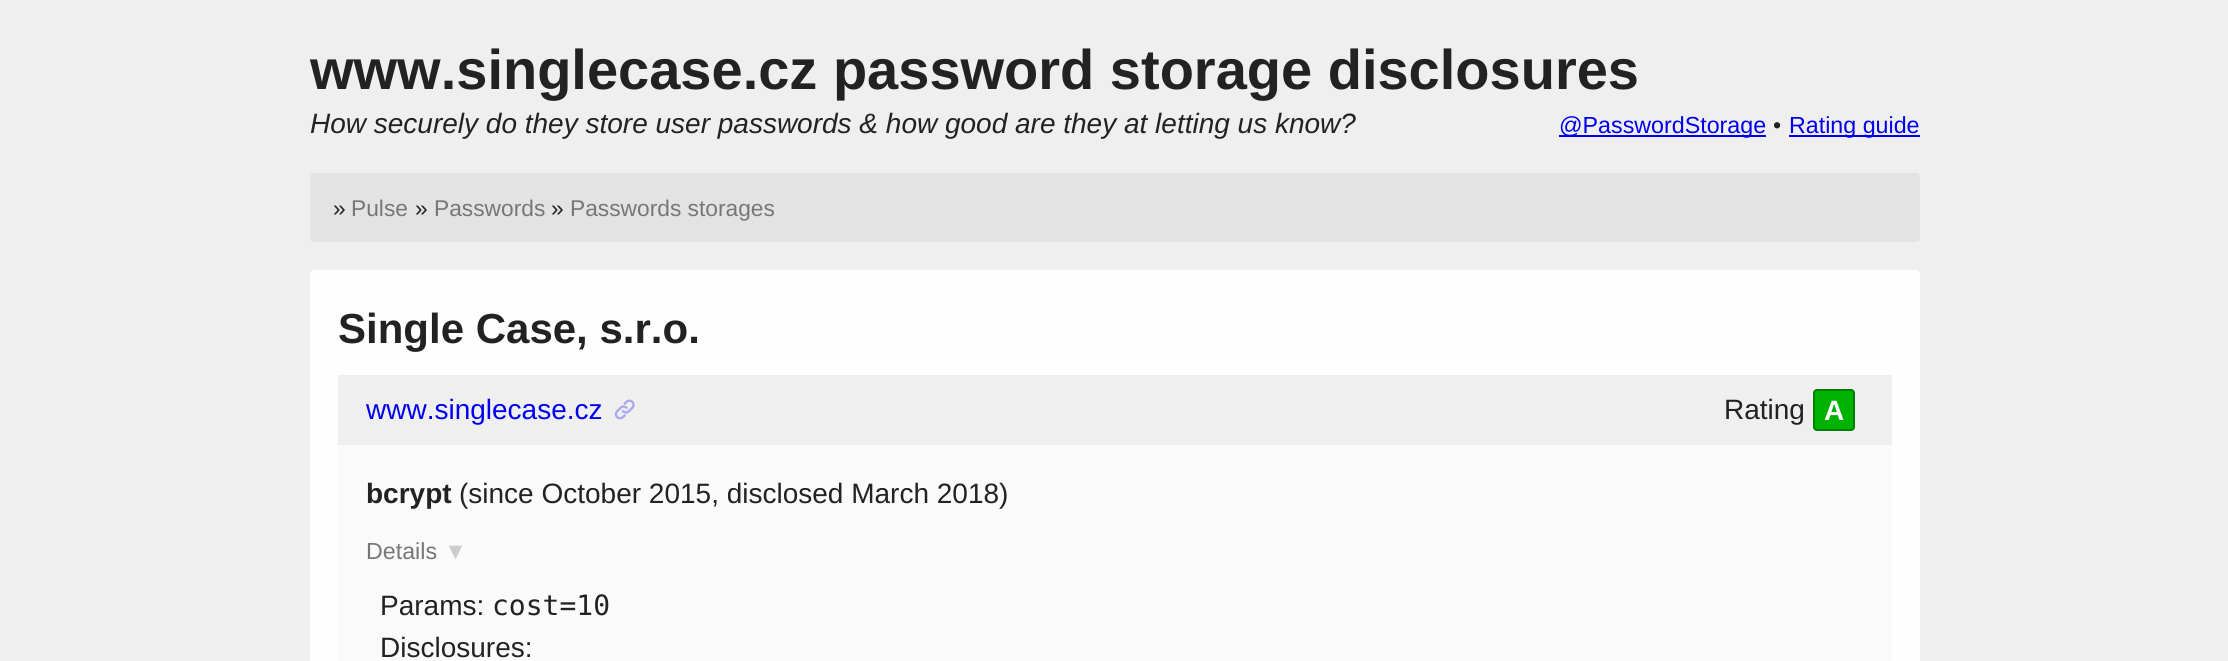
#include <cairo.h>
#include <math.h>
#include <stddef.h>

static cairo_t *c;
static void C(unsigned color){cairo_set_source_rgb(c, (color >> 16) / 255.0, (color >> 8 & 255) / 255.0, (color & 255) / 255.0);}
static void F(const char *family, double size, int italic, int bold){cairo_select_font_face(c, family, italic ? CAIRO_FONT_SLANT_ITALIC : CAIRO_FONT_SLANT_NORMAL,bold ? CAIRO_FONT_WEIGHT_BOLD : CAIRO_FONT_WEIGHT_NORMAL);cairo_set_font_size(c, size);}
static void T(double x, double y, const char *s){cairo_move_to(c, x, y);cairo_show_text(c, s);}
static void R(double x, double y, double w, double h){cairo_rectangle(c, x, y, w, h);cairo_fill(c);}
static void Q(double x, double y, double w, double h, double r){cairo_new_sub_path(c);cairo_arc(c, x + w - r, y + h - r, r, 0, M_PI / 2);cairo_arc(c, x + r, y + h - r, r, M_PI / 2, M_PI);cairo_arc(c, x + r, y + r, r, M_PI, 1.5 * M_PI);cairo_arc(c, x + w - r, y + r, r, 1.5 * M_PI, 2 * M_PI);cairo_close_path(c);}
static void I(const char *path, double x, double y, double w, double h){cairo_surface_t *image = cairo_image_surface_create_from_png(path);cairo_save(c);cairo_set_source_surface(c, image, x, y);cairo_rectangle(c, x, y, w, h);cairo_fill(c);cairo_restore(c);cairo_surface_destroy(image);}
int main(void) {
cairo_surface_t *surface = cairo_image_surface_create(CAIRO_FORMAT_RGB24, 2228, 661);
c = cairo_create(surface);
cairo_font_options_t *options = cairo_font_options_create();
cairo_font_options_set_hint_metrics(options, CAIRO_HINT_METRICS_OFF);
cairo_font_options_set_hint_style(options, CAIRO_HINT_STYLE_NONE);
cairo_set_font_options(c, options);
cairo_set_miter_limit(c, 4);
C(0xefefef);
cairo_paint(c);
F("Liberation Sans",56,0,1);
C(0x222222);
T(310,89,"www.singlecase.cz password storage disclosures");
F("Liberation Sans",28,1,0);
T(310,133,"How securely do they store user passwords & how good are they at letting us know?");
C(0x0000ee);
R(1559,135,207,2);
F("Liberation Sans",23.25,0,0);
T(1559,133,"@PasswordStorage");
C(0x222222);
T(1773,133,"•");
C(0x0000ee);
R(1789,135,131,2);
T(1789,133,"Rating guide");
C(0xe3e3e3);
Q(310,173,1610,69,4);
cairo_fill(c);
F("Liberation Sans",22.75,0,0);
C(0x222222);
T(333,216,"»");
C(0x777777);
T(351,216,"Pulse");
C(0x222222);
T(415,216,"»");
C(0x777777);
T(434,216,"Passwords");
C(0x222222);
T(551,216,"»");
C(0x777777);
T(570,216,"Passwords storages");
C(0xfefefe);
Q(310,270,1610,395,4);
cairo_fill(c);
F("Liberation Sans",42,0,1);
C(0x222222);
T(338,343,"Single Case, s.r.o.");
C(0xefefef);
R(338,375,1554,70);
F("Liberation Sans",28,0,0);
C(0x0000ee);
T(366,419,"www.singlecase.cz");
I("1.png",614,399,21,21);
C(0x222222);
T(1724,419,"Rating");
C(0x00b300);
Q(1814,390,40,40,3);
cairo_fill_preserve(c);
C(0x008000);
cairo_stroke(c);
F("Liberation Sans",28,0,1);
C(0xffffff);
T(1824,420,"A");
C(0xfafafa);
R(338,445,1554,216);
C(0x222222);
T(366,503,"bcrypt");
F("Liberation Sans",28,0,0);
T(459,503,"(since October 2015, disclosed March 2018)");
F("Liberation Sans",23.25,0,0);
C(0x777777);
T(366,559,"Details");
C(0xcccccc);
T(444,559,"▼");
F("Liberation Sans",28,0,0);
C(0x222222);
T(380,615,"Params:");
F("DejaVu Sans Mono",28,0,0);
T(492,615,"cost=10");
F("Liberation Sans",28,0,0);
T(380,657,"Disclosures:");
cairo_surface_write_to_png(surface, "o.png");
cairo_font_options_destroy(options);
cairo_destroy(c);
cairo_surface_destroy(surface);
return 0;
}
